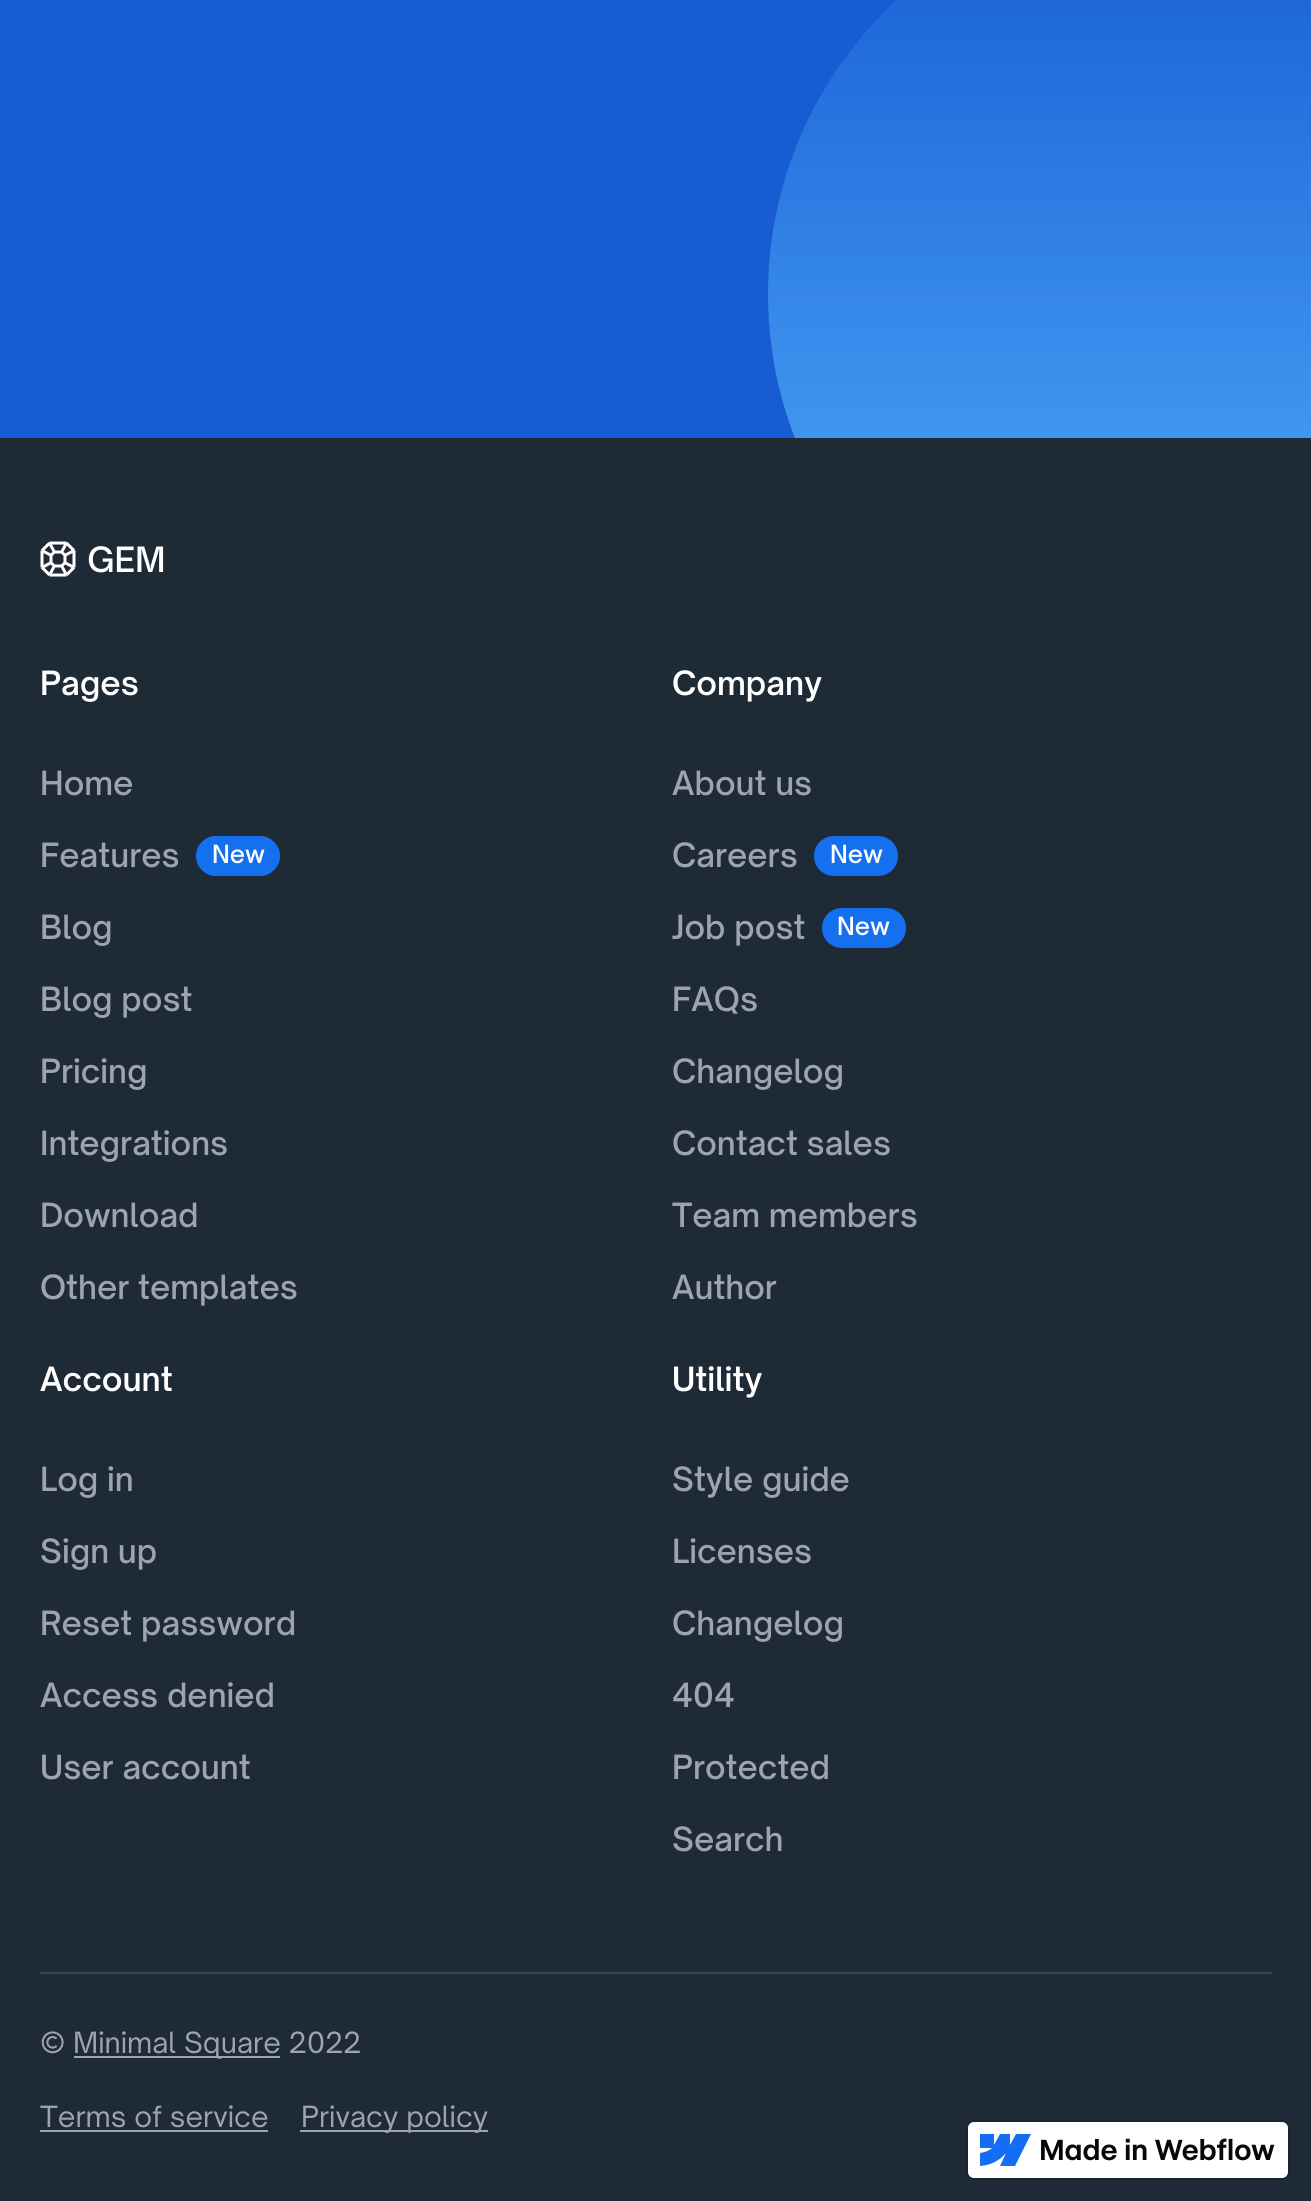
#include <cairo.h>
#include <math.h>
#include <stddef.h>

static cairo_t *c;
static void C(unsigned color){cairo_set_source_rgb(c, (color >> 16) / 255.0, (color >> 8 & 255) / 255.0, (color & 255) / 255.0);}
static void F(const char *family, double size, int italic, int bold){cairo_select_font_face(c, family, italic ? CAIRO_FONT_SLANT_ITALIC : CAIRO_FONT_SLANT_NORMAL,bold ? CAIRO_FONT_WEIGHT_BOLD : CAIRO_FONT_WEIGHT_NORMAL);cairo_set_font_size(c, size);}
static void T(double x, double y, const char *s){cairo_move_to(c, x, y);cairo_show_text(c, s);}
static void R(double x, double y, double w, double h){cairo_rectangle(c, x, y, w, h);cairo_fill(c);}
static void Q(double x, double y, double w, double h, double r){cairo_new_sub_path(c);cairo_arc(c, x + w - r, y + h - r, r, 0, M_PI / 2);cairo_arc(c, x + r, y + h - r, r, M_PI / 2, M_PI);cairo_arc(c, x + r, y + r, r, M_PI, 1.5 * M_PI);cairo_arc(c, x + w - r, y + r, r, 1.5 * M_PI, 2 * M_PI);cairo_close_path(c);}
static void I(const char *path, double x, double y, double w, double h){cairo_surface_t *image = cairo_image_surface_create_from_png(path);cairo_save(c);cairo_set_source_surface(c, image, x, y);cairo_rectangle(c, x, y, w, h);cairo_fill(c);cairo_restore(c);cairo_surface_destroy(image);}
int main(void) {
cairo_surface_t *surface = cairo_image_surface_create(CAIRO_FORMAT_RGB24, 1311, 2201);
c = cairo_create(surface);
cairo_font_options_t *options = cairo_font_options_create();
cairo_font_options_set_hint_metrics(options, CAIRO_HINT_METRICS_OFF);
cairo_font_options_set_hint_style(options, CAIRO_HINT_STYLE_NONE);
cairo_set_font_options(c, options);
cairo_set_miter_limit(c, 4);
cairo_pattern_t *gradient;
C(0x175cd3);
cairo_paint(c);
gradient = cairo_pattern_create_linear(1168,-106,1168,694);
cairo_pattern_add_color_stop_rgba(gradient,0,0.09,0.361,0.831,1);
cairo_pattern_add_color_stop_rgba(gradient,1,0.325,0.694,0.992,1);
cairo_set_source(c,gradient);
cairo_pattern_destroy(gradient);
cairo_arc(c,1168,294,400,0,2 * M_PI);
cairo_fill(c);
C(0x1f2a37);
R(0,438,1311,1763);
I("1.png",40,541,124,36);
F("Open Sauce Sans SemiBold",32,0,0);
C(0xffffff);
T(40,695,"Pages");
F("Open Sauce Sans Medium",32,0,0);
C(0x9da4ae);
T(40,795,"Home");
T(40,867,"Features");
C(0x1570ef);
Q(196,836,84,40,20);
cairo_fill(c);
F("Open Sauce Sans Medium",24,0,0);
C(0xffffff);
T(212,863,"New");
F("Open Sauce Sans Medium",32,0,0);
C(0x9da4ae);
T(40,939,"Blog");
T(40,1011,"Blog post");
T(40,1083,"Pricing");
T(40,1155,"Integrations");
T(40,1227,"Download");
T(40,1299,"Other templates");
F("Open Sauce Sans SemiBold",32,0,0);
C(0xffffff);
T(672,695,"Company");
F("Open Sauce Sans Medium",32,0,0);
C(0x9da4ae);
T(672,795,"About us");
T(672,867,"Careers");
C(0x1570ef);
Q(814,836,84,40,20);
cairo_fill(c);
F("Open Sauce Sans Medium",24,0,0);
C(0xffffff);
T(830,863,"New");
F("Open Sauce Sans Medium",32,0,0);
C(0x9da4ae);
T(672,939,"Job post");
C(0x1570ef);
Q(822,908,84,40,20);
cairo_fill(c);
F("Open Sauce Sans Medium",24,0,0);
C(0xffffff);
T(837,935,"New");
F("Open Sauce Sans Medium",32,0,0);
C(0x9da4ae);
T(672,1011,"FAQs");
T(672,1083,"Changelog");
T(672,1155,"Contact sales");
T(672,1227,"Team members");
T(672,1299,"Author");
F("Open Sauce Sans SemiBold",32,0,0);
C(0xffffff);
T(40,1391,"Account");
F("Open Sauce Sans Medium",32,0,0);
C(0x9da4ae);
T(40,1491,"Log in");
T(40,1563,"Sign up");
T(40,1635,"Reset password");
T(40,1707,"Access denied");
T(40,1779,"User account");
F("Open Sauce Sans SemiBold",32,0,0);
C(0xffffff);
T(672,1391,"Utility");
F("Open Sauce Sans Medium",32,0,0);
C(0x9da4ae);
T(672,1491,"Style guide");
T(672,1563,"Licenses");
T(672,1635,"Changelog");
T(672,1707,"404");
T(672,1779,"Protected");
T(672,1851,"Search");
C(0x384250);
R(40,1972,1232,2);
F("Open Sauce Sans",28,0,0);
C(0x9da4ae);
T(40,2053,"©");
R(74,2056,206,2);
T(73,2053,"Minimal Square 2022");
T(40,2127,"Terms of service");
R(40,2130,228,2);
R(300,2130,188,2);
T(301,2127,"Privacy policy");
Q(967,2121,322,58,7);
cairo_set_source_rgba(c,0,0,0,0.1);
cairo_stroke(c);
C(0xffffff);
Q(968,2122,320,56,6);
cairo_fill(c);
C(0x146ef5);
cairo_set_fill_rule(c,CAIRO_FILL_RULE_EVEN_ODD);
cairo_new_path(c);
cairo_move_to(c,1031,2134);
cairo_line_to(c,1015,2166);
cairo_line_to(c,1000,2166);
cairo_line_to(c,1006,2153);
cairo_curve_to(c,1000,2160,992,2165,980,2166);
cairo_line_to(c,980,2153);
cairo_curve_to(c,980,2153,988,2152,992,2148);
cairo_line_to(c,980,2148);
cairo_line_to(c,980,2134);
cairo_line_to(c,994,2134);
cairo_line_to(c,994,2145);
cairo_line_to(c,1000,2134);
cairo_line_to(c,1010,2134);
cairo_line_to(c,1010,2145);
cairo_line_to(c,1016,2134);
cairo_close_path(c);
cairo_fill(c);
I("2.png",1041,2138,234,23);
cairo_surface_write_to_png(surface, "o.png");
cairo_font_options_destroy(options);
cairo_destroy(c);
cairo_surface_destroy(surface);
return 0;
}
